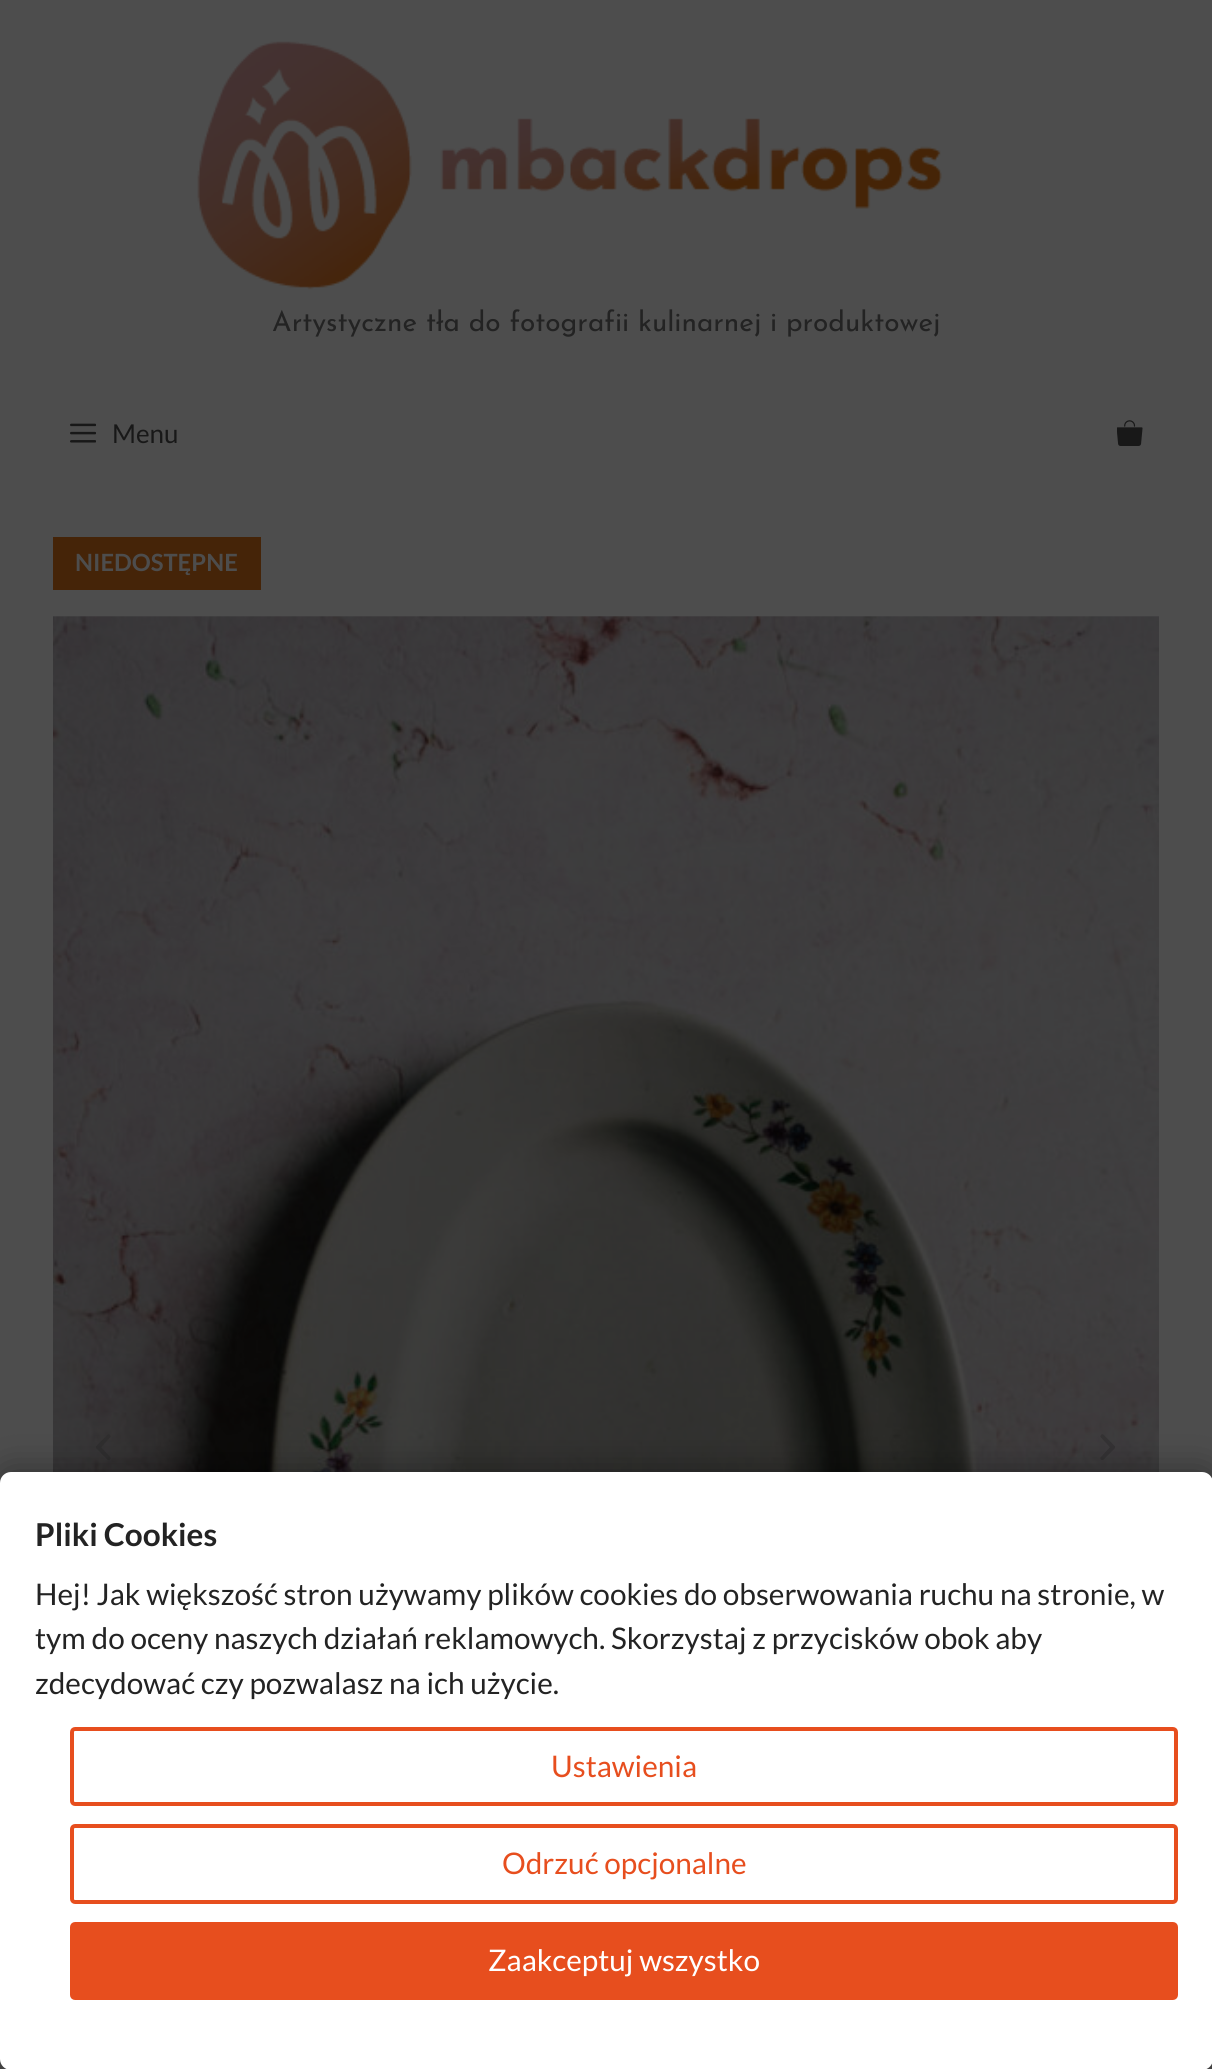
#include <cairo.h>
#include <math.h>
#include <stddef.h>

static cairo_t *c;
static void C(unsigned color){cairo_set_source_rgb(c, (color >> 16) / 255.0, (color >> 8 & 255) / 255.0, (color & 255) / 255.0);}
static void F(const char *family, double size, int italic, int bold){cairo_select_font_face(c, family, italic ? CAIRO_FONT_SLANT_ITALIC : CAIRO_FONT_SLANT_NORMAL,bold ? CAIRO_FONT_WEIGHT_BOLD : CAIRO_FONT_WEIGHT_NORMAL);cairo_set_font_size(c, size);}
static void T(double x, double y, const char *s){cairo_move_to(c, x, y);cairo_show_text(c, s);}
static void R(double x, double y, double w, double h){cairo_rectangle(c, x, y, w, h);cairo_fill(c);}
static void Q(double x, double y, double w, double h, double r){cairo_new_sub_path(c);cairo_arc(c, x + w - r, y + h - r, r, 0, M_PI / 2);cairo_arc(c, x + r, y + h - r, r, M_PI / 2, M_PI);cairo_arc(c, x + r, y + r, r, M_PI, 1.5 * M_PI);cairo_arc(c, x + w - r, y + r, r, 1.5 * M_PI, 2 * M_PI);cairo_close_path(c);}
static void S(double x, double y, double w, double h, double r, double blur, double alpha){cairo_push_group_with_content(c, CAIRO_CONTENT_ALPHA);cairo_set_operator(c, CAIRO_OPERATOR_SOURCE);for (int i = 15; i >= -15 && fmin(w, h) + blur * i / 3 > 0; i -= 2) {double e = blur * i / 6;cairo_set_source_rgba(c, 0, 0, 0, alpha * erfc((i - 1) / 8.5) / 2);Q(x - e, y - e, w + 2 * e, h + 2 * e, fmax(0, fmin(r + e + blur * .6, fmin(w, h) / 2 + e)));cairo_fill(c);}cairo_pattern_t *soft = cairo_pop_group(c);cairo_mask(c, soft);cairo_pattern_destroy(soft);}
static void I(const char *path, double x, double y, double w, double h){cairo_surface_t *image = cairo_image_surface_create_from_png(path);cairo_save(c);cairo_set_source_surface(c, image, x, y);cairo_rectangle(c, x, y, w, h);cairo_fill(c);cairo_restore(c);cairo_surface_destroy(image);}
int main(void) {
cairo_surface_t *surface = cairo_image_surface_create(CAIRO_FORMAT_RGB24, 1212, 2069);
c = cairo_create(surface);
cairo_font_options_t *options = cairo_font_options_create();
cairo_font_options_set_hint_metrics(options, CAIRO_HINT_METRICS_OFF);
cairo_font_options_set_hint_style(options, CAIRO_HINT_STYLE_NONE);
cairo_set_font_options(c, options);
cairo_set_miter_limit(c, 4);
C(0x4d4d4d);
cairo_paint(c);
I("1.png",197,41,745,249);
F("Josefin Sans",28,0,0);
C(0x232323);
T(272,331,"Artystyczne tła do fotografii kulinarnej i produktowej");
I("2.png",70,423,26,20);
F("Lato",26,0,0);
C(0x181818);
T(112,443,"Menu");
I("3.png",1117,420,26,26);
C(0x452408);
R(53,537,208,53);
F("Lato",23.75,0,1);
C(0x4d4d4d);
T(75,571,"NIEDOSTĘPNE");
I("4.png",53,616,1106,856);
I("5.png",96,1434,15,26);
I("6.png",1100,1434,15,26);
C(0x000000);
S(0,1472,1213,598,11,17.5,.4);
C(0xffffff);
Q(0,1472,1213,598,11);
cairo_fill(c);
F("Lato",31.5,0,1);
C(0x232323);
T(35,1546,"Pliki Cookies");
F("Lato",29.75,0,0);
T(35,1605,"Hej! Jak większość stron używamy plików cookies do obserwowania ruchu na stronie, w");
T(35,1649,"tym do oceny naszych działań reklamowych. Skorzystaj z przycisków obok aby");
T(35,1694,"zdecydować czy pozwalasz na ich użycie.");
Q(72,1729,1104,75,3);
C(0xe74e1e);
cairo_set_line_width(c,4);
cairo_stroke(c);
T(551,1777,"Ustawienia");
Q(72,1826,1104,76,3);
cairo_stroke(c);
T(502,1874,"Odrzuć opcjonalne");
Q(72,1924,1104,74,3);
cairo_fill_preserve(c);
cairo_stroke(c);
C(0xffffff);
T(488,1971,"Zaakceptuj wszystko");
cairo_surface_write_to_png(surface, "o.png");
cairo_font_options_destroy(options);
cairo_destroy(c);
cairo_surface_destroy(surface);
return 0;
}
